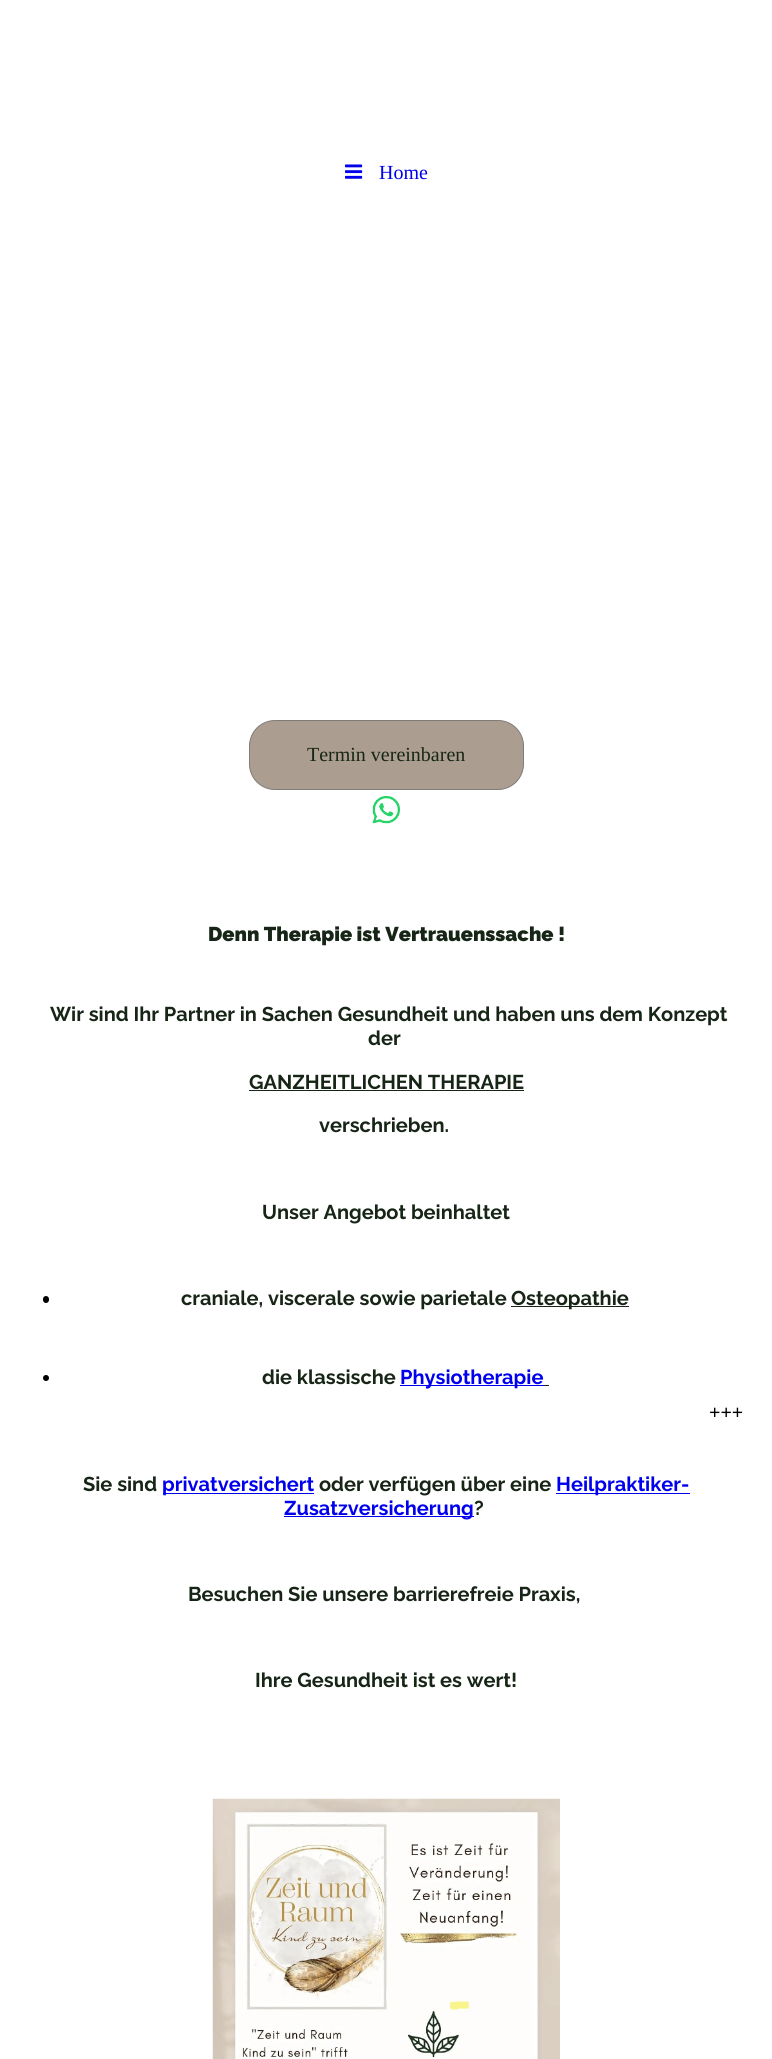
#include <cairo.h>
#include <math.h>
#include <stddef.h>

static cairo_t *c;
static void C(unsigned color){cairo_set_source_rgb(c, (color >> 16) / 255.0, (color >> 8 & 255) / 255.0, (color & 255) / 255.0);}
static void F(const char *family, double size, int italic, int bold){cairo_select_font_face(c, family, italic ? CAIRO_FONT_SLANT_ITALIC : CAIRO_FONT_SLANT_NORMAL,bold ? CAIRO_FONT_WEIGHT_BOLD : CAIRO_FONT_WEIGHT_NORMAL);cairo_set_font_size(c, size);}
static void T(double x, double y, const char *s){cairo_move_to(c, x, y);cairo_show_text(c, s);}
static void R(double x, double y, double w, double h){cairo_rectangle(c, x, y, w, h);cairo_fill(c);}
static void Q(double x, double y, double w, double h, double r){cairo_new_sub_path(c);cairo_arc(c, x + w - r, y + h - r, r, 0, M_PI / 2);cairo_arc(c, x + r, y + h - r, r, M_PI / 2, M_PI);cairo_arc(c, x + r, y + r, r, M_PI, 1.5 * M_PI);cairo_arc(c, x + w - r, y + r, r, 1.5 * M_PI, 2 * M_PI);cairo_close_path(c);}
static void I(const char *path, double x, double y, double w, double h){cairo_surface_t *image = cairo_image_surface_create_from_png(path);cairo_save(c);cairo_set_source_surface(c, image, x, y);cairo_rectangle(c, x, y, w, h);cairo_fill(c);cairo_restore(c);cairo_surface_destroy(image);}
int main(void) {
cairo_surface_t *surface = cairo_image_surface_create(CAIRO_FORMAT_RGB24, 772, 2059);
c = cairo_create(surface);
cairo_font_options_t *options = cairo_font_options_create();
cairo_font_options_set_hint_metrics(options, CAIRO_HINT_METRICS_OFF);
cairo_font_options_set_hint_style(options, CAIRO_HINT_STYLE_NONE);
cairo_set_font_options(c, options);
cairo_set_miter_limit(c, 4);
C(0xffffff);
cairo_paint(c);
I("1.png",345,164,18,15);
F("Liberation Serif",20,0,0);
C(0x0000ee);
T(379,179,"Home");
C(0xab9d90);
Q(249.5,720.5,274,69,25.5);
cairo_fill_preserve(c);
C(0x7f7c7a);
cairo_set_line_width(c,1);
cairo_stroke(c);
C(0x172516);
T(307,761,"Termin vereinbaren");
I("2.png",372,796,28,28);
F("Raleway Black",20,0,0);
T(208,941,"Denn Therapie ist Vertrauenssache !");
F("Raleway",20,0,1);
T(50,1021,"Wir sind Ihr Partner in Sachen Gesundheit und haben uns dem Konzept");
T(368,1045,"der");
T(249,1089,"GANZHEITLICHEN THERAPIE");
R(249,1090,275,1);
T(319,1132,"verschrieben.");
T(262,1219,"Unser Angebot beinhaltet");
C(0x000000);
Q(43,1296,6,7,3);
cairo_fill(c);
C(0x172516);
T(181,1305,"craniale, viscerale sowie parietale");
R(511,1306,118,1);
T(511,1305,"Osteopathie");
C(0x000000);
cairo_new_path(c);
cairo_arc(c,46,1378,3,0,2 * M_PI);
cairo_fill(c);
C(0x172516);
T(262,1384,"die klassische");
C(0x0000ee);
R(400,1385,144,1);
T(400,1384,"Physiotherapie");
C(0x172516);
R(544,1385,5,1);
F("Liberation Serif",20,0,1);
C(0x000000);
T(709,1419,"+++");
F("Raleway",20,0,1);
C(0x172516);
T(83,1491,"Sie sind");
C(0x0000ee);
R(163,1493,151,1);
T(162,1491,"privatversichert");
C(0x172516);
T(319,1491,"oder verfügen über eine");
C(0x0000ee);
R(556,1493,134,1);
T(556,1491,"Heilpraktiker-");
R(284,1516,190,1);
T(284,1515,"Zusatzversicherung");
C(0x172516);
T(474,1515,"?");
T(188,1601,"Besuchen Sie unsere barrierefreie Praxis,");
T(255,1687,"Ihre Gesundheit ist es wert!");
I("3.png",212,1798,348,261);
cairo_surface_write_to_png(surface, "o.png");
cairo_font_options_destroy(options);
cairo_destroy(c);
cairo_surface_destroy(surface);
return 0;
}
